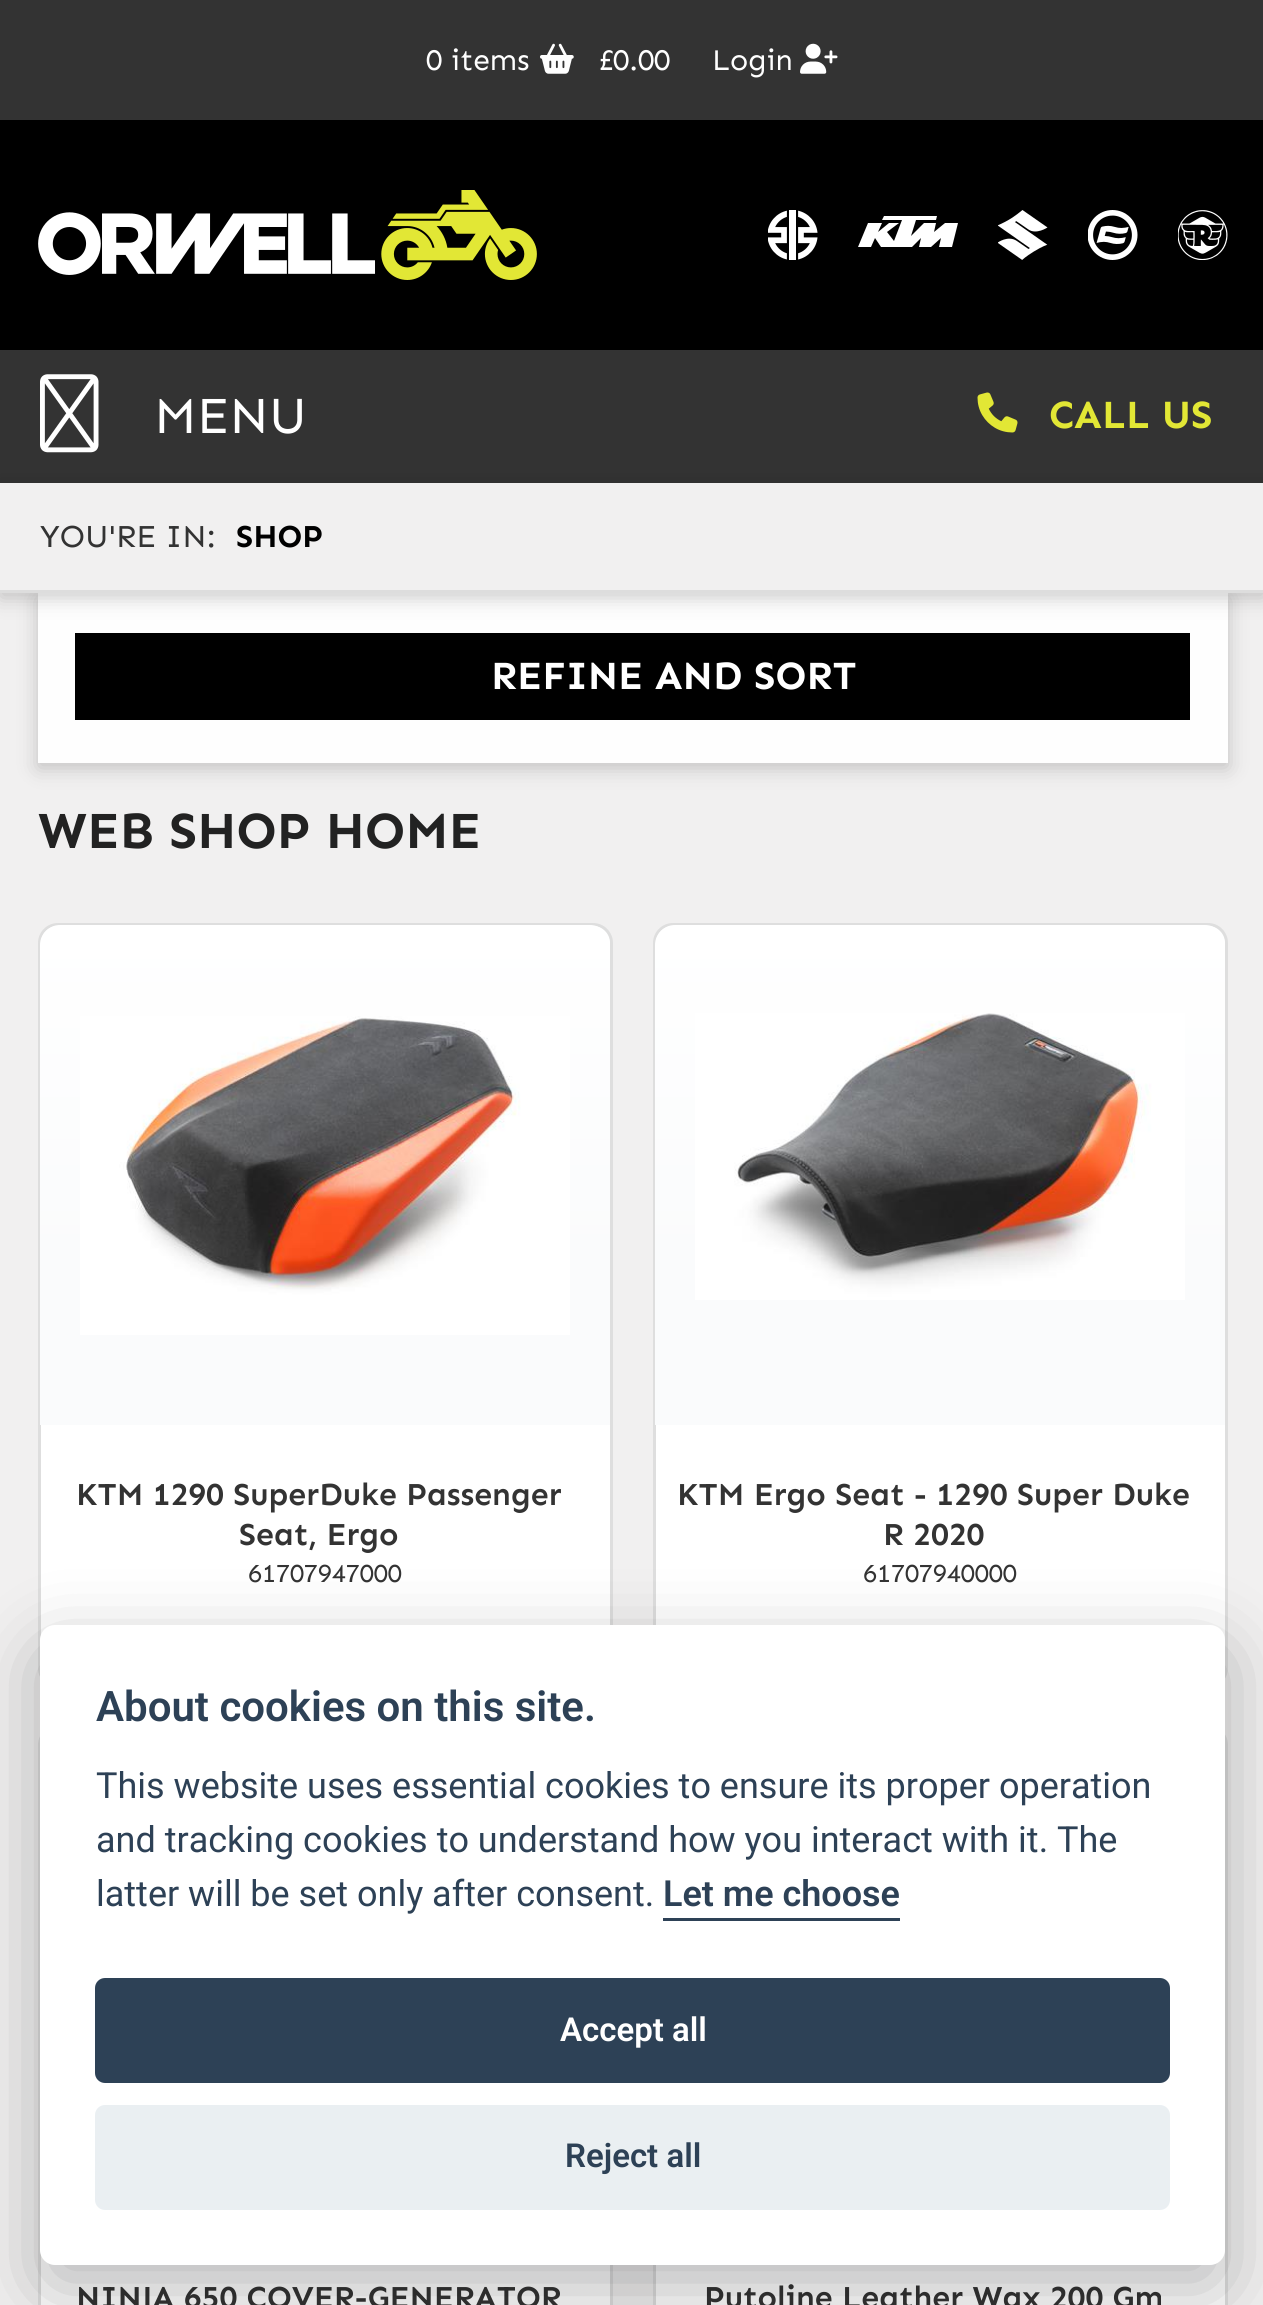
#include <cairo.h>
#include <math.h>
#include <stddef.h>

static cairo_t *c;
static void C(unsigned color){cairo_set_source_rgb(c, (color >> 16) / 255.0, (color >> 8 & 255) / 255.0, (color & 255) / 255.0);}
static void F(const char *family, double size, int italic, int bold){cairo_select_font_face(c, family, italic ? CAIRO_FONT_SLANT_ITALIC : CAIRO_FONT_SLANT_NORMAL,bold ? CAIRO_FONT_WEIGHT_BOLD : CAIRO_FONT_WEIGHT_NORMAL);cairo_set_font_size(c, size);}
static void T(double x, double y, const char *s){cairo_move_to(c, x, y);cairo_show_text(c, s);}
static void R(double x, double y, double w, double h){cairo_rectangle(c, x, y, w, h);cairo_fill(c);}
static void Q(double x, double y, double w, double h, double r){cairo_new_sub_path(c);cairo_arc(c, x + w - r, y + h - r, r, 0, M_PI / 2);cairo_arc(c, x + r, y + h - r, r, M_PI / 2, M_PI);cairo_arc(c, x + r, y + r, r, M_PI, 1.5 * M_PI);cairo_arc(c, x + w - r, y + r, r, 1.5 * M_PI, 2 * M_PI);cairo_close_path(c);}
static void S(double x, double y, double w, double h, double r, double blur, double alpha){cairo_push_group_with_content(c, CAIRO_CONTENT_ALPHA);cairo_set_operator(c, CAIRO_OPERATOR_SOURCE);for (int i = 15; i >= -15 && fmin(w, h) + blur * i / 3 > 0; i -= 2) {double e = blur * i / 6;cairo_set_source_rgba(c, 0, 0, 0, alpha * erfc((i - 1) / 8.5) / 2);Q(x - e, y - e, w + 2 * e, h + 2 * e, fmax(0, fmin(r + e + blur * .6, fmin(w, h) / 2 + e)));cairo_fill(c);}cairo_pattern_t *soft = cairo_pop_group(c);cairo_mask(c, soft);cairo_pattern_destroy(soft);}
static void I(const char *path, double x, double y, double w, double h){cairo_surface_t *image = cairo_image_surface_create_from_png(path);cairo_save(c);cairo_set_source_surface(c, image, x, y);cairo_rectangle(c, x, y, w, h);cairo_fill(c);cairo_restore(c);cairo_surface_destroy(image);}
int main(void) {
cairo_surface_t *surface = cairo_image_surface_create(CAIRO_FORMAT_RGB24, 1263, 2305);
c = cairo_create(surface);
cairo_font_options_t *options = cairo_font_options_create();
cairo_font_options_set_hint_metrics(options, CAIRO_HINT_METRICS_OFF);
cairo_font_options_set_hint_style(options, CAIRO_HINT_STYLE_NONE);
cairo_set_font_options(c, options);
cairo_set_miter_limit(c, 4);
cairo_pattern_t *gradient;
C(0xf1f0f0);
cairo_paint(c);
C(0x333333);
R(0,0,1263,120);
F("Sen",30,0,0);
C(0xffffff);
T(426,70,"0 items");
I("1.png",540,43,34,31);
T(598,70,"£0.00");
T(712,70,"Login");
I("2.png",800,43,38,31);
C(0x000000);
R(0,120,1263,230);
I("3.png",38,190,499,90);
I("4.png",768,210,50,50);
C(0xffffff);
cairo_new_path(c);
cairo_move_to(c,858,247);
cairo_line_to(c,871,247);
cairo_line_to(c,875,238);
cairo_line_to(c,881,247);
cairo_line_to(c,912,247);
cairo_line_to(c,921,238);
cairo_line_to(c,919,247);
cairo_line_to(c,931,247);
cairo_line_to(c,941,238);
cairo_line_to(c,939,247);
cairo_line_to(c,952,247);
cairo_line_to(c,958,223);
cairo_line_to(c,945,223);
cairo_line_to(c,934,232);
cairo_line_to(c,936,223);
cairo_line_to(c,924,223);
cairo_line_to(c,911,236);
cairo_line_to(c,916,220);
cairo_line_to(c,936,220);
cairo_line_to(c,937,216);
cairo_line_to(c,884,216);
cairo_line_to(c,882,220);
cairo_line_to(c,902,220);
cairo_line_to(c,894,241);
cairo_line_to(c,887,232);
cairo_line_to(c,899,223);
cairo_line_to(c,889,223);
cairo_line_to(c,878,232);
cairo_line_to(c,882,223);
cairo_line_to(c,868,223);
cairo_close_path(c);
cairo_fill(c);
I("5.png",998,210,50,50);
I("6.png",1088,210,50,50);
I("7.png",1178,210,50,50);
C(0x333333);
R(0,350,1263,133);
I("8.png",40,374,59,79);
F("Sen",52,0,0);
C(0xffffff);
T(154,433,"MENU");
I("9.png",977,392,41,41);
F("Sen",40,0,1);
C(0xe2e735);
T(1049,428,"CALL US");
cairo_save(c);
cairo_set_fill_rule(c,CAIRO_FILL_RULE_EVEN_ODD);
cairo_new_path(c);
cairo_move_to(c,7,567);
cairo_line_to(c,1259,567);
cairo_line_to(c,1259,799);
cairo_line_to(c,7,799);
cairo_close_path(c);
cairo_move_to(c,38,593);
cairo_line_to(c,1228,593);
cairo_line_to(c,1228,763);
cairo_line_to(c,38,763);
cairo_close_path(c);
cairo_clip(c);
C(0x000000);
S(38,598,1190,170,0,10,.2);
cairo_restore(c);
cairo_set_source_rgba(c,1,1,1,0.95);
R(38,593,1190,170);
C(0x000000);
S(0,488,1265,110,0,10,.2);
C(0xf1f0f0);
R(0,483,1263,107);
C(0xdddddd);
R(0,590,1263,3);
F("Sen",32,0,0);
C(0x333333);
T(40,547,"YOU'RE IN:");
F("Sen",32,0,1);
C(0x000000);
T(236,547,"SHOP");
R(75,633,1115,87);
F("Sen",40,0,1);
C(0xffffff);
T(491,689,"REFINE AND SORT");
F("Sen",52,0,1);
C(0x222222);
T(38,848,"WEB SHOP HOME");
C(0xffffff);
Q(39.5,924.5,572,762,18.5);
cairo_fill_preserve(c);
C(0xdedede);
cairo_set_line_width(c,3);
cairo_stroke(c);
gradient = cairo_pattern_create_linear(325,1425,325,925);
cairo_pattern_add_color_stop_rgba(gradient,.3,0.98,0.984,0.988,1);
cairo_pattern_add_color_stop_rgba(gradient,1,1,1,1,1);
cairo_set_source(c,gradient);
cairo_pattern_destroy(gradient);
cairo_new_path(c);
cairo_move_to(c,60,925);
cairo_line_to(c,590,925);
cairo_curve_to(c,601,925,610,934,610,945);
cairo_line_to(c,610,1425);
cairo_line_to(c,40,1425);
cairo_line_to(c,40,945);
cairo_curve_to(c,40,934,49,925,60,925);
cairo_close_path(c);
cairo_fill(c);
I("10.png",80,1016,490,319);
F("Sen SemiBold",32,0,0);
C(0x333333);
T(76,1505,"KTM 1290 SuperDuke Passenger");
T(239,1545,"Seat, Ergo");
F("Sen",26,0,0);
T(248,1582,"61707947000");
C(0xffffff);
Q(654.5,924.5,572,762,18.5);
cairo_fill_preserve(c);
C(0xdedede);
cairo_stroke(c);
gradient = cairo_pattern_create_linear(940,1425,940,925);
cairo_pattern_add_color_stop_rgba(gradient,.3,0.98,0.984,0.988,1);
cairo_pattern_add_color_stop_rgba(gradient,1,1,1,1,1);
cairo_set_source(c,gradient);
cairo_pattern_destroy(gradient);
cairo_new_path(c);
cairo_move_to(c,675,925);
cairo_line_to(c,1205,925);
cairo_curve_to(c,1216,925,1225,934,1225,945);
cairo_line_to(c,1225,1425);
cairo_line_to(c,655,1425);
cairo_line_to(c,655,945);
cairo_curve_to(c,655,934,664,925,675,925);
cairo_close_path(c);
cairo_fill(c);
I("11.png",695,1013,490,287);
F("Sen SemiBold",32,0,0);
C(0x333333);
T(677,1505,"KTM Ergo Seat - 1290 Super Duke");
T(883,1545,"R 2020");
F("Sen",26,0,0);
T(863,1582,"61707940000");
C(0xffffff);
Q(39.5,1726.5,572,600,18.5);
cairo_fill_preserve(c);
C(0xdedede);
cairo_stroke(c);
F("Sen SemiBold",32,0,0);
C(0x333333);
T(76,2308,"NINJA 650 COVER-GENERATOR");
C(0xffffff);
Q(654.5,1726.5,572,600,18.5);
cairo_fill_preserve(c);
C(0xdedede);
cairo_stroke(c);
C(0x333333);
T(704,2308,"Putoline Leather Wax 200 Gm");
C(0x020203);
S(40,1650,1185,640,15,37.5,.28);
C(0xffffff);
Q(40,1625,1185,640,15);
cairo_fill(c);
F("Roboto SemiBold",42,0,0);
C(0x2d4156);
T(96,1721,"About cookies on this site.");
F("Roboto",36,0,0);
T(96,1798,"This website uses essential cookies to ensure its proper operation");
T(96,1852,"and tracking cookies to understand how you interact with it. The");
T(96,1906,"latter will be set only after consent.");
F("Roboto SemiBold",36,0,0);
T(663,1906,"Let me choose");
R(663,1918,237,3);
Q(95,1978,1075,105,10);
cairo_fill(c);
F("Roboto SemiBold",33,0,0);
C(0xffffff);
T(560,2041,"Accept all");
C(0xeaeff2);
Q(95,2105,1075,105,10);
cairo_fill(c);
C(0x2d4156);
T(565,2167,"Reject all");
cairo_surface_write_to_png(surface, "o.png");
cairo_font_options_destroy(options);
cairo_destroy(c);
cairo_surface_destroy(surface);
return 0;
}
